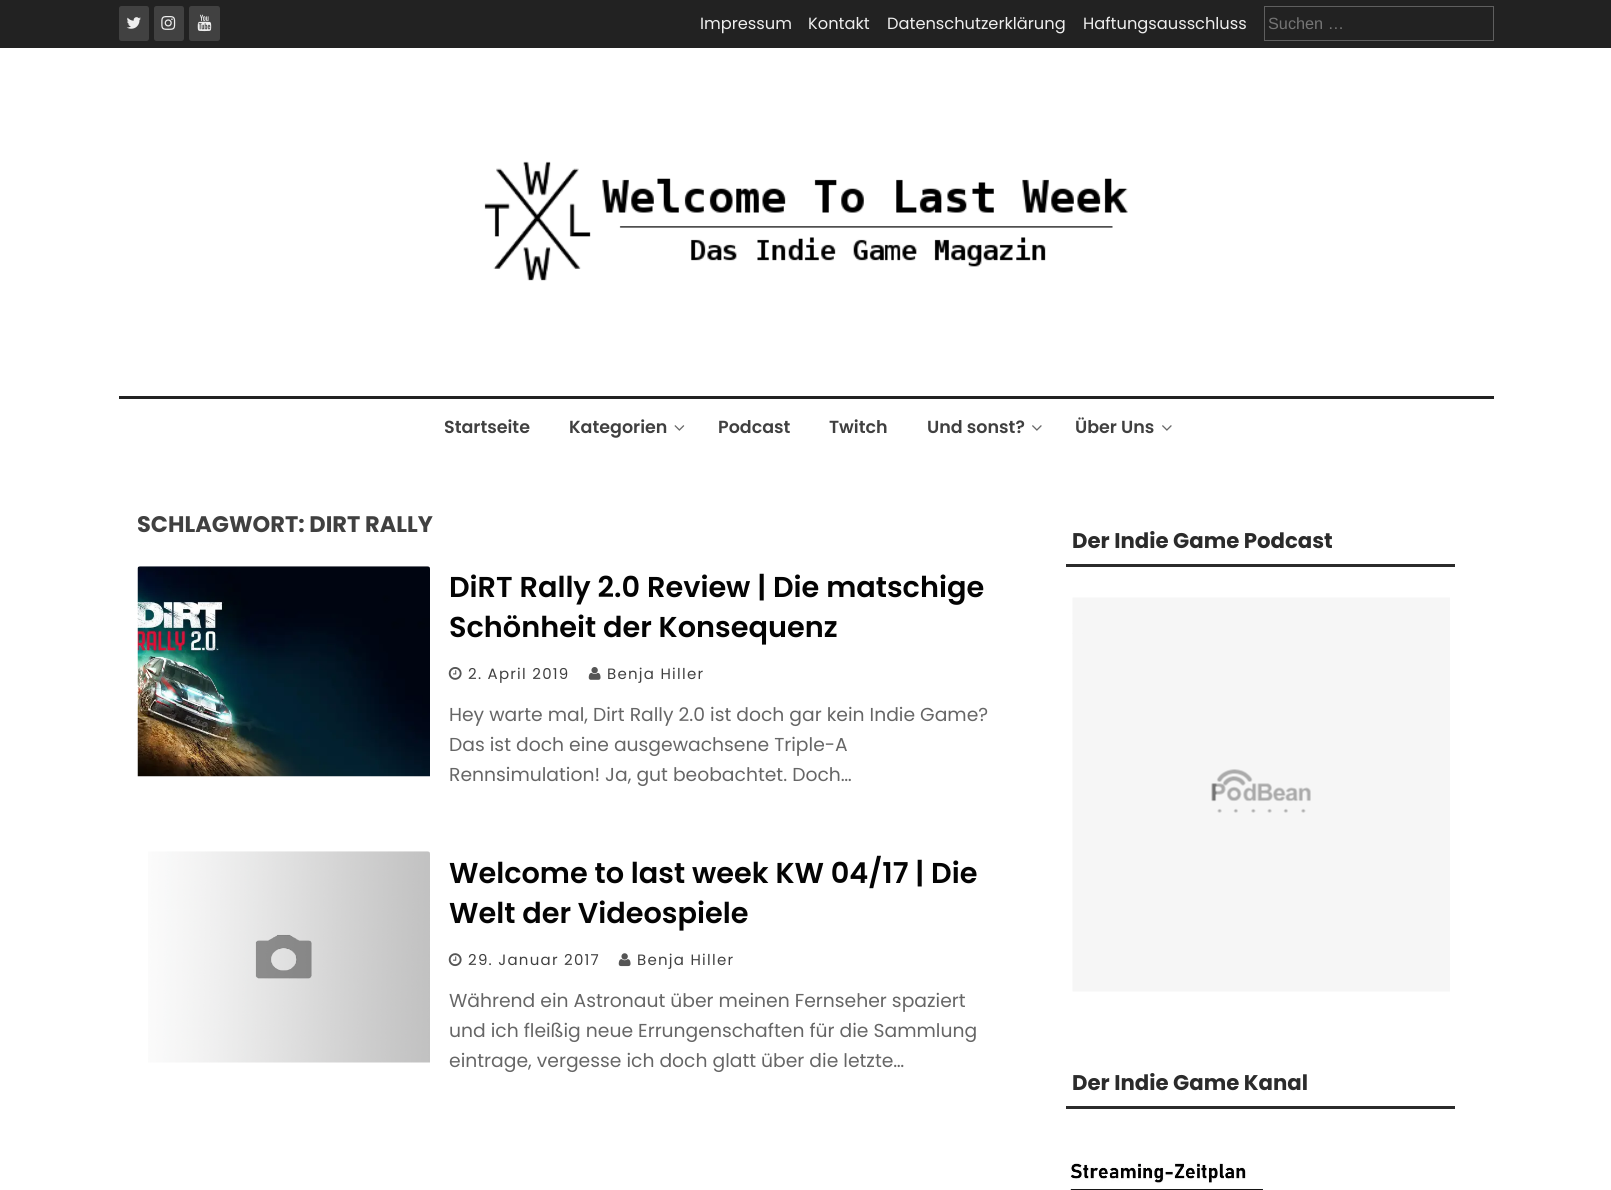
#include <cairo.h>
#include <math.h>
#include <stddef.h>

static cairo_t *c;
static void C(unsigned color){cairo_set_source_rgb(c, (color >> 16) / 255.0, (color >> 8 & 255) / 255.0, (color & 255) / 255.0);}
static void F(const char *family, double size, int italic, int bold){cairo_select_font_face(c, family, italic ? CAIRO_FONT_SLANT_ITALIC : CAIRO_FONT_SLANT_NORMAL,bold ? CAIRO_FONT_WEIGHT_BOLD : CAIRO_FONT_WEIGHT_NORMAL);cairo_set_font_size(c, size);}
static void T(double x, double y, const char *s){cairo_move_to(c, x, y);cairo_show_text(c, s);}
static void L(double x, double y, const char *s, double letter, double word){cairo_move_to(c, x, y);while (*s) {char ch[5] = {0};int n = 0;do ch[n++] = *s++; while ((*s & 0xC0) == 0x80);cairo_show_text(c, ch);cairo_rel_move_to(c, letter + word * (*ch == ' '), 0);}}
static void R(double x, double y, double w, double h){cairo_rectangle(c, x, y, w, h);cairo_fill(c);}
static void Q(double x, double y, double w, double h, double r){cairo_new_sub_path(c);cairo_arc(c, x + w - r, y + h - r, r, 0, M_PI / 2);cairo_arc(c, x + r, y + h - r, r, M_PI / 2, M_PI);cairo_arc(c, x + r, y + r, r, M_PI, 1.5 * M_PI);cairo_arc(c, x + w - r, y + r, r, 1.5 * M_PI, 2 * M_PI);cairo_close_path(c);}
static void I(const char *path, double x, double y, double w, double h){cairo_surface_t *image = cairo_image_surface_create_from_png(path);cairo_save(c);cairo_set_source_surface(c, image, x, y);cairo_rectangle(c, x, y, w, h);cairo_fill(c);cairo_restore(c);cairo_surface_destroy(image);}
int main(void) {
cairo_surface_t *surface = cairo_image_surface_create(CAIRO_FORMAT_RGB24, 1611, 1190);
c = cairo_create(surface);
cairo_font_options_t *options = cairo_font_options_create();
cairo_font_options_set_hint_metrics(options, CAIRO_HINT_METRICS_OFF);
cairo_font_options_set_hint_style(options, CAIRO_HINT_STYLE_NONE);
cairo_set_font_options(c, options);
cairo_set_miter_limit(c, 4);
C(0xffffff);
cairo_paint(c);
C(0x222222);
R(0,0,1611,48);
C(0x414141);
Q(119,6,30,35,2.5);
cairo_fill(c);
I("1.png",126,17,15,12);
Q(154,6,30,35,2.5);
cairo_fill(c);
I("2.png",161,16,15,14);
Q(189,6,31,35,2.5);
cairo_fill(c);
I("3.png",197,14,15,18);
F("Poppins",16.25,0,0);
C(0xeeeeee);
T(700,29,"Impressum");
T(808,29,"Kontakt");
T(887,29,"Datenschutzerklärung");
T(1083,29,"Haftungsausschluss");
cairo_rectangle(c,1264.5,6.5,229,34);
C(0x5f5f5f);
cairo_set_line_width(c,1);
cairo_stroke(c);
F("Liberation Sans",16.25,0,0);
C(0x757575);
T(1268,29,"Suchen …");
I("4.png",484,161,644,120);
C(0x222222);
R(119,396,1375,3);
F("Poppins SemiBold",17.5,0,0);
C(0x404040);
T(444,433,"Startseite");
T(569,433,"Kategorien");
I("5.png",674,425,11,6);
T(718,433,"Podcast");
T(829,433,"Twitch");
T(927,433,"Und sonst?");
I("6.png",1032,425,10,6);
T(1075,433,"Über Uns");
I("6.png",1162,425,10,6);
F("Poppins",22.5,0,1);
T(137,532,"SCHLAGWORT: DIRT RALLY");
I("7.png",137,566,293,211);
F("Poppins SemiBold",28.75,0,0);
C(0x040404);
T(449,597,"DiRT Rally 2.0 Review | Die matschige");
T(449,637,"Schönheit der Konsequenz");
I("8.png",448,667,14,13);
F("Poppins",15,0,0);
C(0x404040);
L(468,679,"2. April 2019",1.25,0);
I("9.png",588,667,13,13);
L(607,679,"Benja Hiller",1.25,0);
F("Poppins",18.75,0,0);
C(0x666666);
T(449,721,"Hey warte mal, Dirt Rally 2.0 ist doch gar kein Indie Game?");
T(449,751,"Das ist doch eine ausgewachsene Triple-A");
T(449,781,"Rennsimulation! Ja, gut beobachtet. Doch…");
I("10.png",148,851,282,212);
F("Poppins SemiBold",28.75,0,0);
C(0x040404);
T(449,883,"Welcome to last week KW 04/17 | Die");
T(449,923,"Welt der Videospiele");
I("11.png",448,953,14,14);
F("Poppins",15,0,0);
C(0x404040);
L(468,965,"29. Januar 2017",1.25,0);
I("12.png",618,953,13,14);
L(637,965,"Benja Hiller",1.25,0);
F("Poppins",18.75,0,0);
C(0x666666);
T(449,1007,"Während ein Astronaut über meinen Fernseher spaziert");
T(449,1037,"und ich fleißig neue Errungenschaften für die Sammlung");
T(449,1067,"eintrage, vergesse ich doch glatt über die letzte…");
C(0x2b2b2b);
R(1066,564,389,3);
F("Poppins",21.25,0,1);
T(1072,548,"Der Indie Game Podcast");
I("13.png",1072,597,378,395);
R(1066,1106,389,3);
T(1072,1090,"Der Indie Game Kanal");
I("14.png",1070,1162,193,28);
cairo_surface_write_to_png(surface, "o.png");
cairo_font_options_destroy(options);
cairo_destroy(c);
cairo_surface_destroy(surface);
return 0;
}
